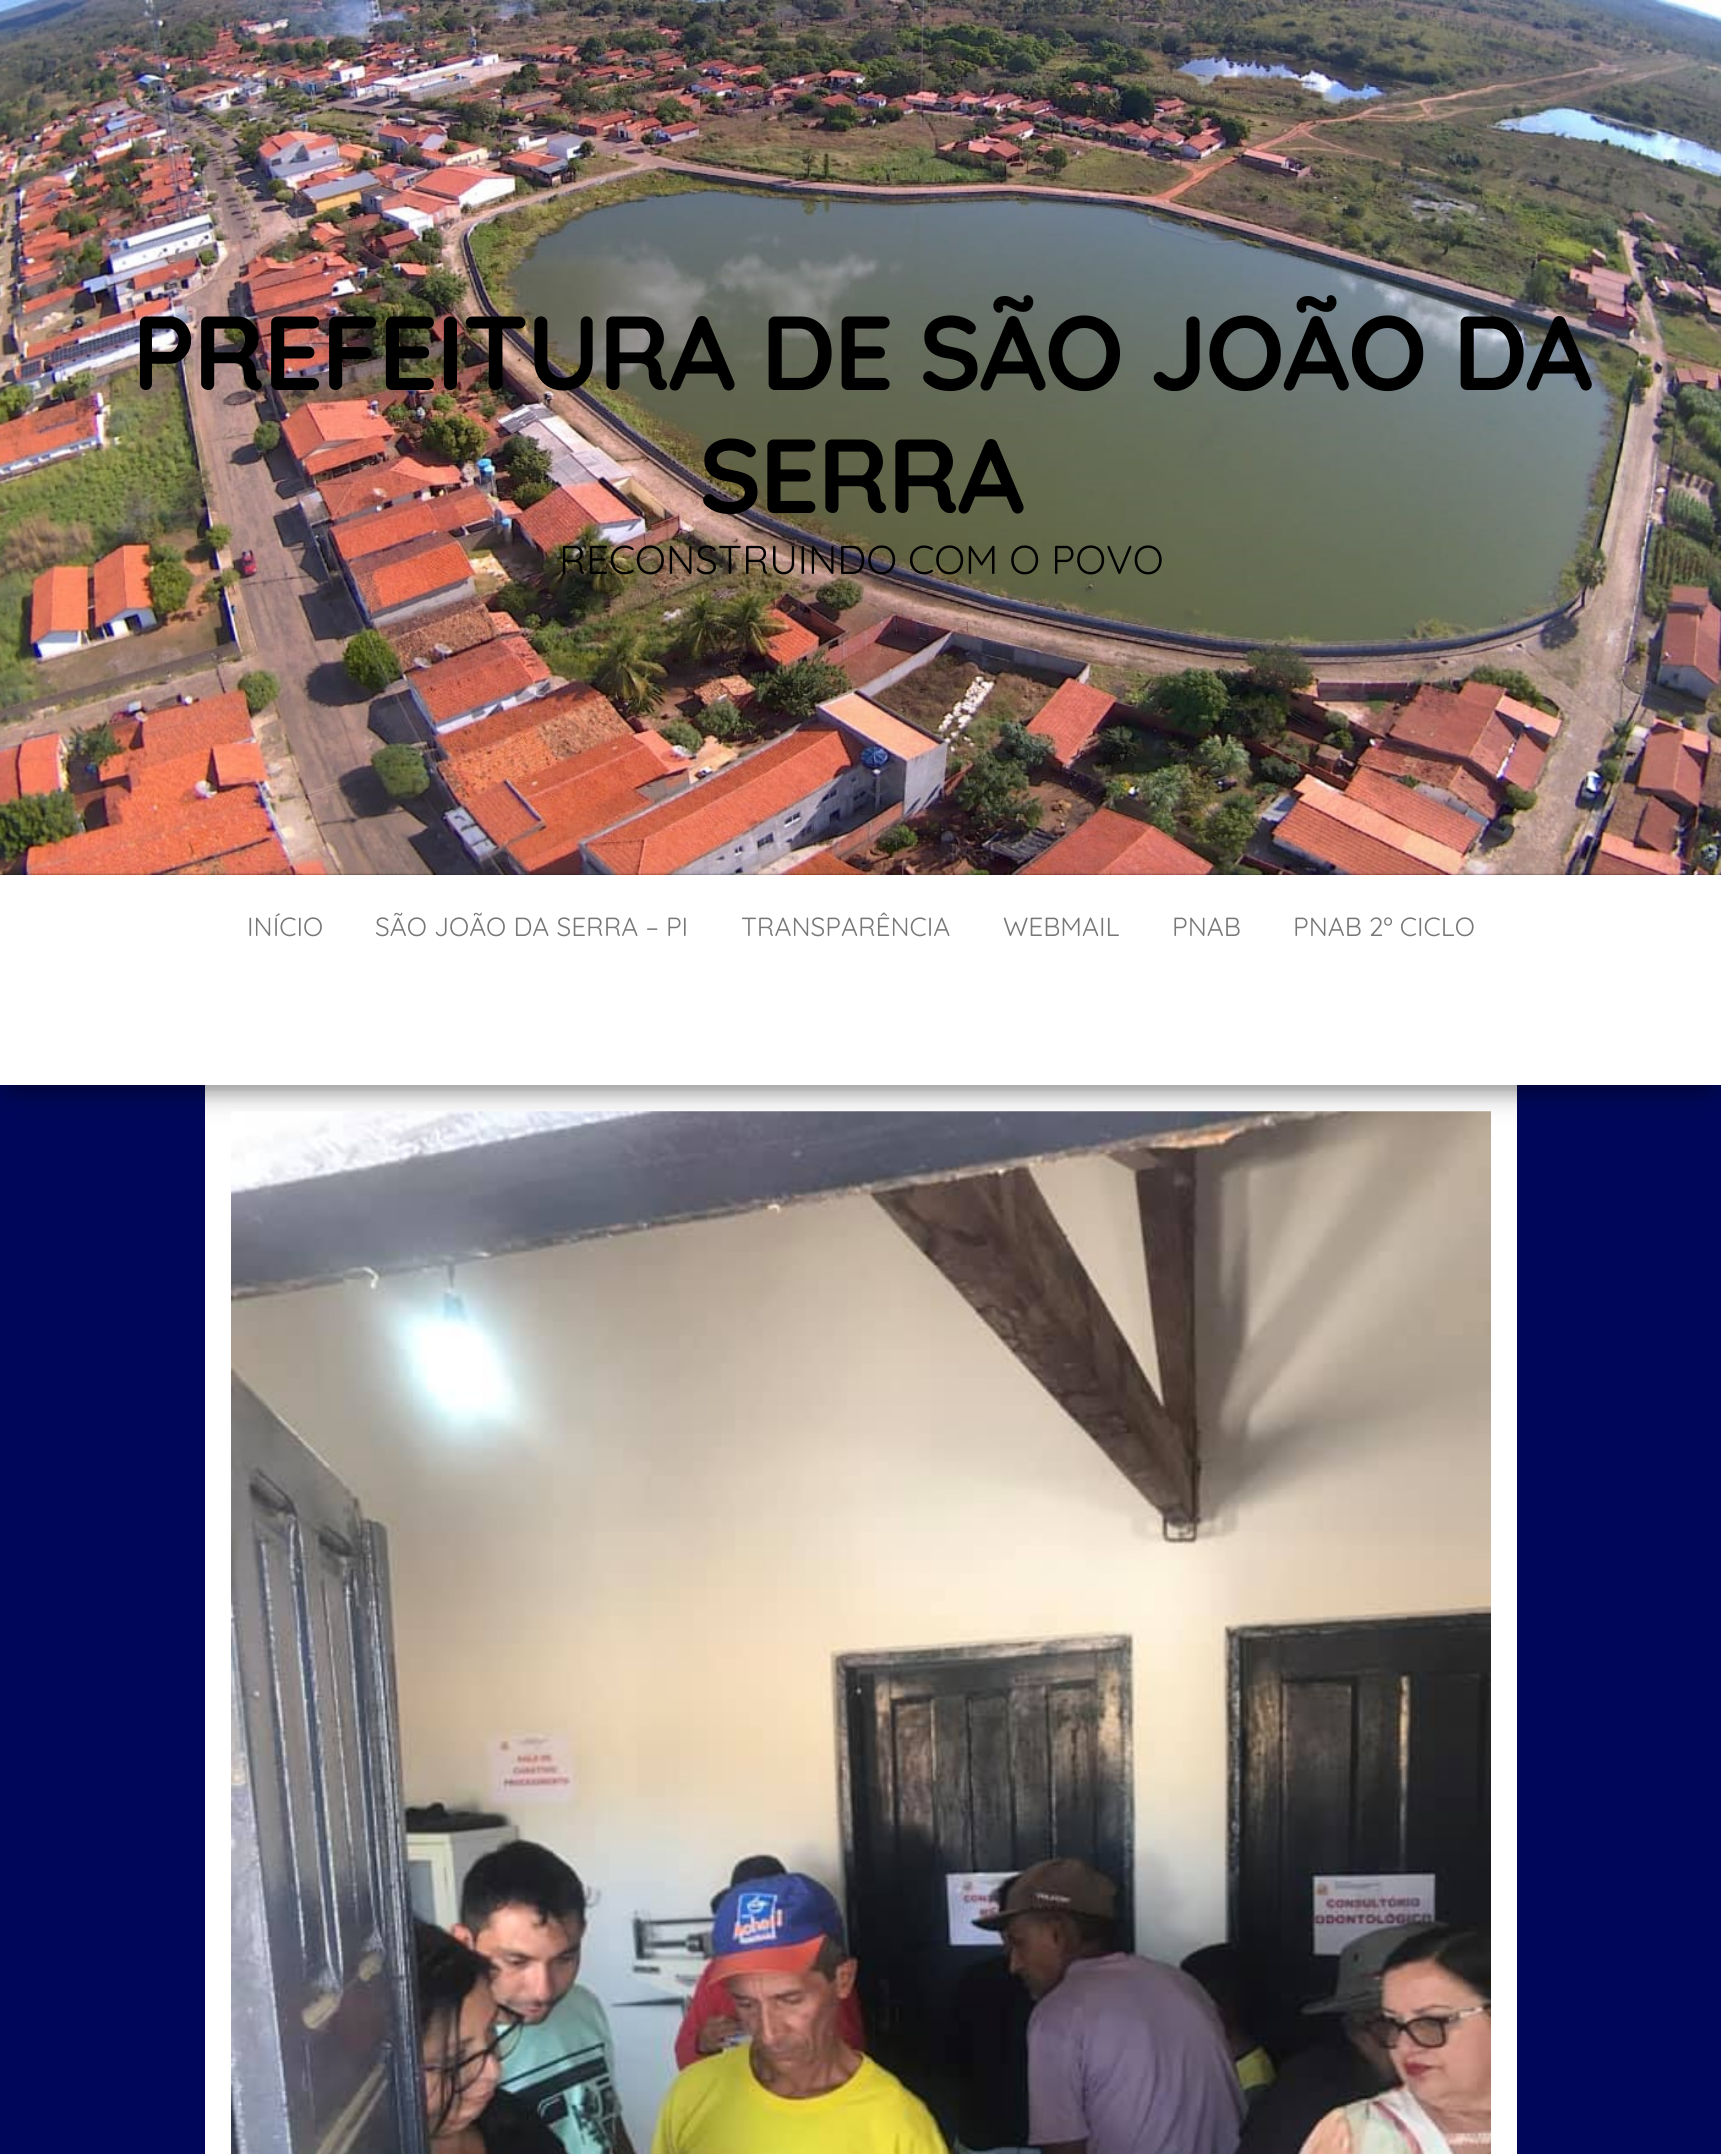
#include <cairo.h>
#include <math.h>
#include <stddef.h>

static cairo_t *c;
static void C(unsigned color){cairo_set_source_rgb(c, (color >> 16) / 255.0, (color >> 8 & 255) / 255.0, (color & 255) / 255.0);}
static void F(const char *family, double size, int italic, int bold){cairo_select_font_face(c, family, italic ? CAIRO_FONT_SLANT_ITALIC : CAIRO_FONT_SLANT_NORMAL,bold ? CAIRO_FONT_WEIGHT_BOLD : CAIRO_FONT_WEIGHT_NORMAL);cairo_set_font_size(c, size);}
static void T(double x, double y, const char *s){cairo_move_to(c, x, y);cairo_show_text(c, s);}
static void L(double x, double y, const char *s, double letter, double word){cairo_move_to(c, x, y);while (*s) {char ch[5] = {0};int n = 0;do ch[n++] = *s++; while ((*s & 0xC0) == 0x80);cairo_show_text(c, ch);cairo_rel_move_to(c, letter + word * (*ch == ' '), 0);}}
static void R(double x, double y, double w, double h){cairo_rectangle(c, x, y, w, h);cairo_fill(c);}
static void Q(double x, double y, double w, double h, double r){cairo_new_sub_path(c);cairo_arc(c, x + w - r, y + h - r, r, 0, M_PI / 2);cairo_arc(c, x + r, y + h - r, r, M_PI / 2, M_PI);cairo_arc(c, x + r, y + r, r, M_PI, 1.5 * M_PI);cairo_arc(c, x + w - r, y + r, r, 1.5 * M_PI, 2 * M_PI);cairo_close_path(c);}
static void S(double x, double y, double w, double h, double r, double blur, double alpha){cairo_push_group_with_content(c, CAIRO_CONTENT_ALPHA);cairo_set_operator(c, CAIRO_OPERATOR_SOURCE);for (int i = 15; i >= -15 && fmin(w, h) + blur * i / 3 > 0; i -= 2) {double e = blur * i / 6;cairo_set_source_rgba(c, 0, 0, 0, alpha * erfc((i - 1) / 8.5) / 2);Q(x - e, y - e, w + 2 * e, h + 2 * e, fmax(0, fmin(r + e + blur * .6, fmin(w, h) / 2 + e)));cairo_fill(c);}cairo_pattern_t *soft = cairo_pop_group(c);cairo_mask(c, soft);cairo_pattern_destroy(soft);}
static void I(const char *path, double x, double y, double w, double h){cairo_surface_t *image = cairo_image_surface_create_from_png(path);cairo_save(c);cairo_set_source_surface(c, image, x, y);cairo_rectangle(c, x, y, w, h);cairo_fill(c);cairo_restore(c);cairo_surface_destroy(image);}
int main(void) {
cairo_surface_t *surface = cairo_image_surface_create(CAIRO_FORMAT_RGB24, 1721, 2154);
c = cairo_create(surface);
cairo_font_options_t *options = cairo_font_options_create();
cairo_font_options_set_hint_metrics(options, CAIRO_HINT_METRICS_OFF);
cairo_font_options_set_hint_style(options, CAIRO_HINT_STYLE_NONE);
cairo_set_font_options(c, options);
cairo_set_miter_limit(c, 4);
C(0x00075b);
cairo_paint(c);
I("1.png",0,0,1721,875);
F("Quicksand",105,0,1);
C(0x000000);
L(132,390,"PREFEITURA DE SÃO JOÃO DA",-2.1,0);
L(699,513,"SERRA",-2.1,0);
F("Quicksand",40.25,0,0);
T(559,574,"RECONSTRUINDO COM O POVO");
C(0xffffff);
R(205,1085,1312,1069);
C(0x000000);
S(9,898,1704,192,0,9,.2);
S(0,880,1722,210,0,17.5,.12);
S(21,914,1680,168,0,17.5,.42);
C(0xffffff);
R(0,875,1721,210);
F("Quicksand",26.25,0,0);
C(0x777777);
T(247,936,"INÍCIO");
T(375,936,"SÃO JOÃO DA SERRA – PI");
T(741,936,"TRANSPARÊNCIA");
T(1003,936,"WEBMAIL");
T(1172,936,"PNAB");
T(1293,936,"PNAB 2º CICLO");
I("2.png",231,1111,1260,1043);
cairo_surface_write_to_png(surface, "o.png");
cairo_font_options_destroy(options);
cairo_destroy(c);
cairo_surface_destroy(surface);
return 0;
}
